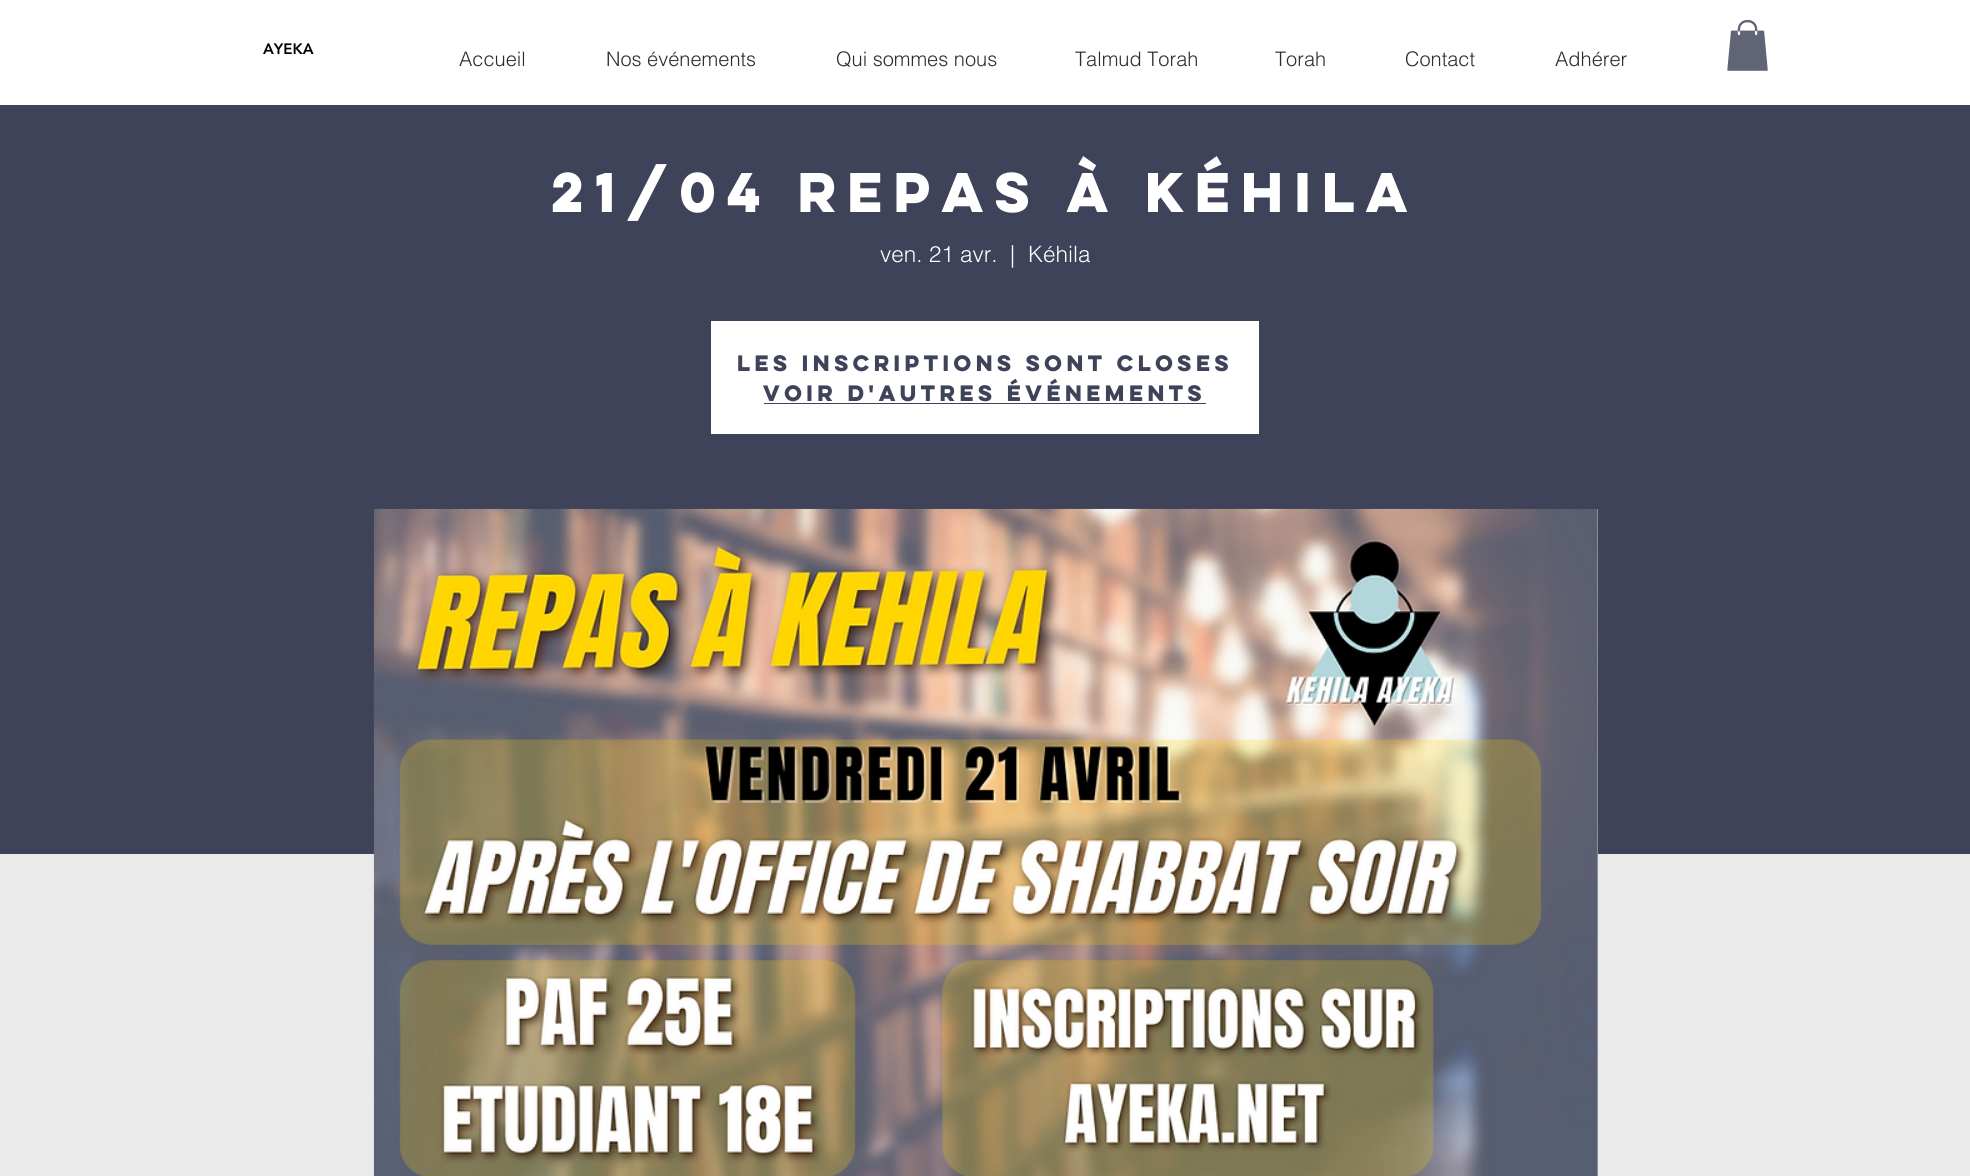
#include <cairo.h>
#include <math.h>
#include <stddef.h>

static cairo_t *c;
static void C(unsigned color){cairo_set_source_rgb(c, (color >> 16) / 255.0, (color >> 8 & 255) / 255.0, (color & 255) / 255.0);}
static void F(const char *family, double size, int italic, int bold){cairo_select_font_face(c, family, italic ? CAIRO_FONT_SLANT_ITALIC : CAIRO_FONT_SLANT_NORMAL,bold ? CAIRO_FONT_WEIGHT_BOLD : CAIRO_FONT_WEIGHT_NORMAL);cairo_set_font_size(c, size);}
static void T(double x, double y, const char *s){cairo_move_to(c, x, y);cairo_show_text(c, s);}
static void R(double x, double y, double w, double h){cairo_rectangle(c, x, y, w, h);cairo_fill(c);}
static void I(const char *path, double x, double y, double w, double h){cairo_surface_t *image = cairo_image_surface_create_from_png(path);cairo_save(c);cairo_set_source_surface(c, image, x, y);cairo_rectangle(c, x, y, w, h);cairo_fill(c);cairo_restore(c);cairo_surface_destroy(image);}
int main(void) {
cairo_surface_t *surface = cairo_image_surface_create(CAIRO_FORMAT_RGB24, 1970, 1176);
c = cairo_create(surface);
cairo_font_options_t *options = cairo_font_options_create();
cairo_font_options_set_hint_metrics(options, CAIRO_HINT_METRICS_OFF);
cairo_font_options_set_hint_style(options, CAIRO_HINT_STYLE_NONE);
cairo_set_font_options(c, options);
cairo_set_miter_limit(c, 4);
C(0xeaeaea);
cairo_paint(c);
C(0xffffff);
R(0,0,1970,105);
F("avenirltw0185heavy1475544 Black",15,0,0);
C(0x000000);
T(263,54,"AYEKA");
F("helvetica Light",20,0,0);
C(0x2c2d2e);
T(459,66,"Accueil");
T(606,66,"Nos événements");
T(836,66,"Qui sommes nous");
T(1075,66,"Talmud Torah");
T(1275,66,"Torah");
T(1405,66,"Contact");
T(1555,66,"Adhérer");
I("1.png",1727,20,41,51);
C(0x3f4359);
R(0,105,1970,749);
F("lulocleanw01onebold",50,0,1);
C(0xffffff);
T(551,212,"21/04 Repas à Kéhila");
F("helvetica Light",22.5,0,0);
T(880,262,"ven. 21 avr.");
T(1010,262,"|");
T(1028,262,"Kéhila");
R(711,321,548,113);
F("lulocleanw01onebold",20,0,1);
C(0x3f4359);
T(737,371,"Les inscriptions sont closes");
T(763,401,"Voir d'autres événements");
R(764,403,442,1);
C(0x9b9eac);
R(1597,509,1,667);
I("2.png",373,508,1225,668);
cairo_surface_write_to_png(surface, "o.png");
cairo_font_options_destroy(options);
cairo_destroy(c);
cairo_surface_destroy(surface);
return 0;
}
